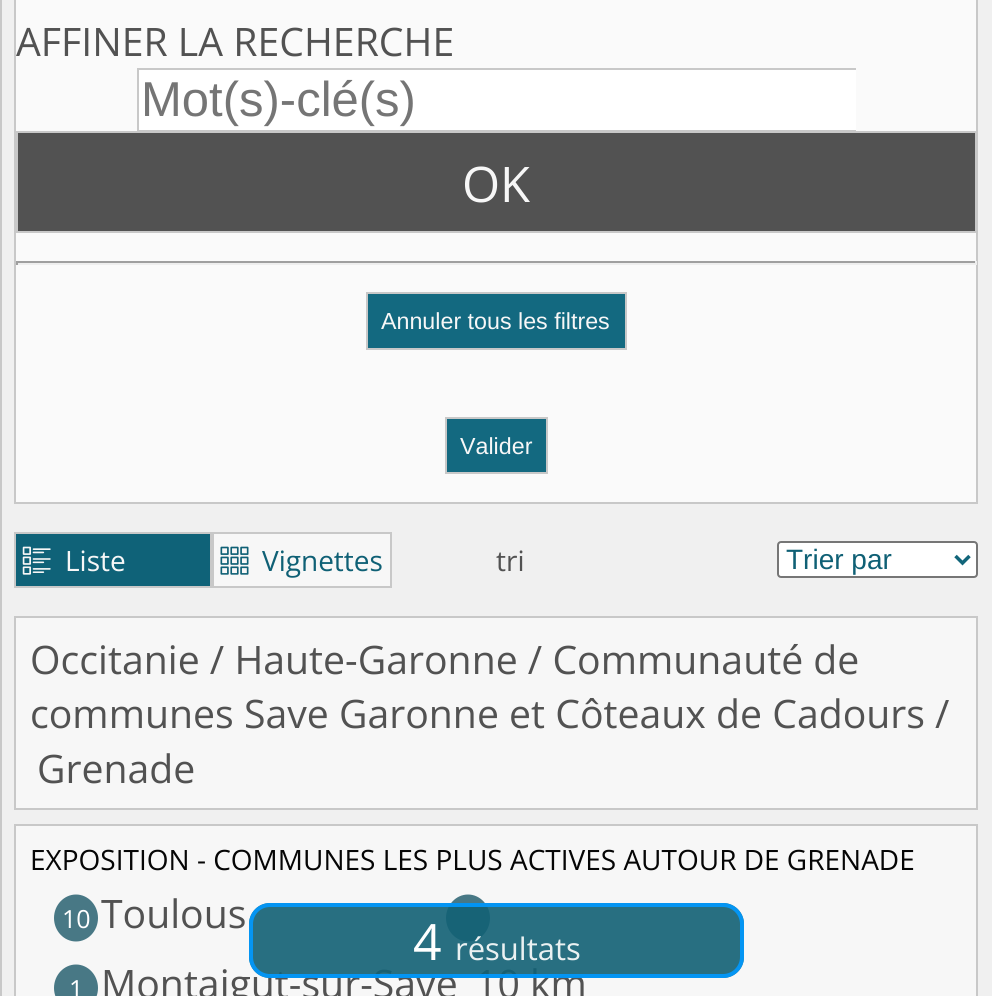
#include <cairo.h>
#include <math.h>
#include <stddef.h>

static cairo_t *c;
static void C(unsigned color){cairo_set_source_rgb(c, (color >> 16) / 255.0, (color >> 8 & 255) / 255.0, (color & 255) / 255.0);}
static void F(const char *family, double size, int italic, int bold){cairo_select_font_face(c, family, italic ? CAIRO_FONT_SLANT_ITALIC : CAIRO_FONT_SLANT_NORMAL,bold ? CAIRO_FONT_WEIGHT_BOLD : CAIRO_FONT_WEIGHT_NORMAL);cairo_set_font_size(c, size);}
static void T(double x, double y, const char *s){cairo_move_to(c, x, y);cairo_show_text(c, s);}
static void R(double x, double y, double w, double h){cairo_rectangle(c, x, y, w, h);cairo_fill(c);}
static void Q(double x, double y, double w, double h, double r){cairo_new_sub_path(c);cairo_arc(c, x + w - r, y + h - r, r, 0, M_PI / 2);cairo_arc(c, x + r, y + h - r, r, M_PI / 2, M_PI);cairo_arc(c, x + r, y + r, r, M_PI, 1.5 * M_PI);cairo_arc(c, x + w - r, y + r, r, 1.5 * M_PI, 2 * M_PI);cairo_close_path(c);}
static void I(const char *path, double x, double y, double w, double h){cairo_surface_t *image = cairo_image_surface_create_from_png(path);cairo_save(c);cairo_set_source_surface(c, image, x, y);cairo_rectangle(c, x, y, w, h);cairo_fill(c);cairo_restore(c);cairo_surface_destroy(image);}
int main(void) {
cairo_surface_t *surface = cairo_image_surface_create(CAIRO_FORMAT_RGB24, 992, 996);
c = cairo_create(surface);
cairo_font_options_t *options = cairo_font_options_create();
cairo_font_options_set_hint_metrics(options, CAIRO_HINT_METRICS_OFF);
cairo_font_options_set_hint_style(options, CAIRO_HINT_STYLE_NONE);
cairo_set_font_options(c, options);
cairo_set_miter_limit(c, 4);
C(0xf0f0f0);
cairo_paint(c);
C(0xc8c8c8);
R(0,0,2,996);
C(0xfafafa);
cairo_rectangle(c,15,-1,962,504);
cairo_fill_preserve(c);
C(0xc8c8c8);
cairo_stroke(c);
F("Open Sans",39.2,0,0);
C(0x525252);
T(16,56,"AFFINER LA RECHERCHE");
C(0xffffff);
R(139,70,717,60);
C(0xc8c8c8);
R(137,68,719,2);
R(137,130,719,1);
R(137,68,2,63);
F("Liberation Sans",49,0,0);
C(0x757575);
T(141,116,"Mot(s)-clé(s)");
C(0x525252);
cairo_rectangle(c,17,132,959,100);
cairo_fill_preserve(c);
C(0xc8c8c8);
cairo_stroke(c);
F("Open Sans",49,0,0);
C(0xf7f7f7);
T(462,202,"OK");
C(0x9f9f9f);
R(16,261,961,2);
C(0xeeeeee);
R(975,261,2,4);
R(16,263,961,2);
C(0x9f9f9f);
R(16,261,2,4);
C(0x136980);
cairo_rectangle(c,367,293,259,56);
cairo_fill_preserve(c);
C(0xc8c8c8);
cairo_stroke(c);
F("Liberation Sans",23.25,0,0);
C(0xf7f7f7);
T(381,329,"Annuler tous les filtres");
C(0x136980);
cairo_rectangle(c,446,418,101,55);
cairo_fill_preserve(c);
C(0xc8c8c8);
cairo_stroke(c);
C(0xf7f7f7);
T(460,454,"Valider");
C(0x0f6278);
cairo_rectangle(c,15,533,196,54);
cairo_fill_preserve(c);
C(0xc8c8c8);
cairo_stroke(c);
I("1.png",22,546,29,29);
F("Open Sans",28,0,0);
C(0xf7f7f7);
T(65,571,"Liste");
cairo_rectangle(c,213,533,178,54);
cairo_fill_preserve(c);
C(0xc8c8c8);
cairo_stroke(c);
I("2.png",220,546,29,29);
C(0x0f6075);
T(262,571,"Vignettes");
C(0x525252);
T(496,571,"tri");
C(0xffffff);
Q(778,542,199,35,3);
cairo_fill_preserve(c);
C(0x767676);
cairo_stroke(c);
cairo_new_path(c);
cairo_move_to(c,955.5,556);
cairo_line_to(c,962.5,563);
cairo_line_to(c,969.5,556);
C(0x11657a);
cairo_set_line_width(c,3.5);
cairo_stroke(c);
F("Liberation Sans",28,0,0);
C(0x0f6075);
T(786,569,"Trier par");
C(0xf7f7f7);
cairo_rectangle(c,15,617,962,192);
cairo_fill_preserve(c);
C(0xc8c8c8);
cairo_set_line_width(c,2);
cairo_stroke(c);
F("Open Sans",39.2,0,0);
C(0x525252);
T(30,674,"Occitanie / Haute-Garonne / Communauté de");
T(30,728,"communes Save Garonne et Côteaux de Cadours");
T(935,728,"/");
T(37,783,"Grenade");
C(0xf7f7f7);
cairo_rectangle(c,15,825,962,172);
cairo_fill_preserve(c);
C(0xc8c8c8);
cairo_stroke(c);
F("Open Sans",28,0,0);
C(0x050505);
T(30,870,"EXPOSITION - COMMUNES LES PLUS ACTIVES AUTOUR DE GRENADE");
C(0x487885);
cairo_new_path(c);
cairo_move_to(c,76,894.5);
cairo_curve_to(c,88,894.5,98,905,98,918);
cairo_curve_to(c,98,931,88,941.5,76,941.5);
cairo_curve_to(c,64,941.5,54,931,54,918);
cairo_curve_to(c,54,905,64,894.5,76,894.5);
cairo_close_path(c);
cairo_fill(c);
F("Open Sans",25,0,0);
C(0xffffff);
T(62,928,"10");
F("Open Sans",39.2,0,0);
C(0x525252);
T(101,928,"Toulous");
C(0x487885);
cairo_new_path(c);
cairo_move_to(c,468,894.5);
cairo_curve_to(c,480,894.5,490,905,490,918);
cairo_curve_to(c,490,931,480,941.5,468,941.5);
cairo_curve_to(c,456,941.5,446,931,446,918);
cairo_curve_to(c,446,905,456,894.5,468,894.5);
cairo_close_path(c);
cairo_fill(c);
cairo_new_path(c);
cairo_move_to(c,76,964.5);
cairo_curve_to(c,88,964.5,98,975,98,988);
cairo_curve_to(c,98,1001,88,1011.5,76,1011.5);
cairo_curve_to(c,64,1011.5,54,1001,54,988);
cairo_curve_to(c,54,975,64,964.5,76,964.5);
cairo_close_path(c);
cairo_fill(c);
F("Open Sans",25,0,0);
C(0xffffff);
T(69,998,"1");
F("Open Sans",39.2,0,0);
C(0x525252);
T(101,998,"Montaigut-sur-Save");
T(475,998,"10 km");
cairo_set_source_rgba(c,0.071,0.38,0.459,0.9);
Q(249,903,495,75,21);
cairo_fill(c);
Q(251,905,491,71,19);
cairo_set_source_rgba(c,0,0.6,1,0.9);
cairo_set_line_width(c,4);
cairo_stroke(c);
F("Open Sans",50,0,0);
C(0xffffff);
T(413,960,"4");
F("Open Sans",31,0,0);
C(0xeaf1f2);
T(455,960,"résultats");
cairo_surface_write_to_png(surface, "o.png");
cairo_font_options_destroy(options);
cairo_destroy(c);
cairo_surface_destroy(surface);
return 0;
}
